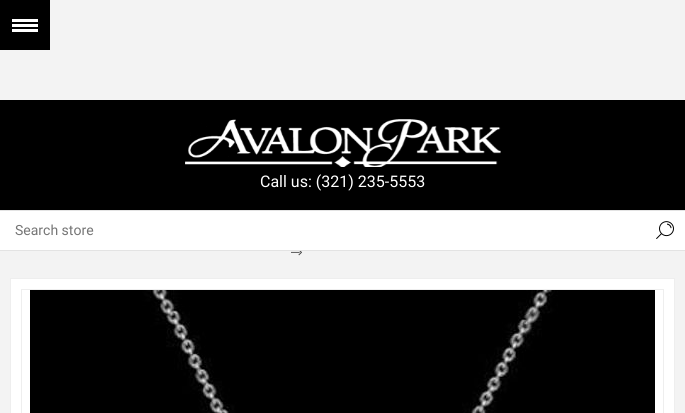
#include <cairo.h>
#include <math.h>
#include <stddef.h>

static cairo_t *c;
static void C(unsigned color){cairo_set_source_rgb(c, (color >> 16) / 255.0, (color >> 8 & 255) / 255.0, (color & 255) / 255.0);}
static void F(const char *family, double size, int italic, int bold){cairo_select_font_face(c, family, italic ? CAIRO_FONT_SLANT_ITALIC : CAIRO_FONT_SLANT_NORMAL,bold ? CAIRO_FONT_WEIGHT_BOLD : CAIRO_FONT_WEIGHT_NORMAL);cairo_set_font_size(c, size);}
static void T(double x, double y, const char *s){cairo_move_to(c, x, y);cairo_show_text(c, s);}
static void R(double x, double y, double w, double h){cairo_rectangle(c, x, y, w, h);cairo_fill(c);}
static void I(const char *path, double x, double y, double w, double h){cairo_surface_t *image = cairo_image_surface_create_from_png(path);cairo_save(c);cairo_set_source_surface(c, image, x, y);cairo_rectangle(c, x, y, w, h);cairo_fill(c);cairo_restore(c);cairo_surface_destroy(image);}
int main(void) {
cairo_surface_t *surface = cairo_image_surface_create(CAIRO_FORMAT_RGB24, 685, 413);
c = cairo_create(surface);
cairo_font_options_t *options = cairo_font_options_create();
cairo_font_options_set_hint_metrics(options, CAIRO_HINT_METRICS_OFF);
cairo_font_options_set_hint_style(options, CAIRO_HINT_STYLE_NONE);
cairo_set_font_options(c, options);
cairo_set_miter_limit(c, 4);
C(0xf3f3f3);
cairo_paint(c);
C(0x000000);
R(0,0,50,50);
C(0xffffff);
R(12,19,26,3);
R(12,24,26,3);
R(12,29,26,3);
C(0xe3e3e3);
R(0,210,685,1);
C(0x000000);
R(0,100,685,110);
I("1.png",185,119,316,48);
F("Roboto",16,0,0);
C(0xffffff);
T(260,187,"Call us: (321) 235-5553");
R(0,211,685,39);
C(0xe3e3e3);
R(0,250,685,1);
F("Roboto",14,0,0);
C(0x757575);
T(15,235,"Search store");
I("2.png",656,221,18,18);
I("3.png",291,251,11,5);
C(0xffffff);
cairo_rectangle(c,10.5,278.5,664,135);
cairo_fill_preserve(c);
C(0xeeeeee);
cairo_set_line_width(c,1);
cairo_stroke(c);
cairo_rectangle(c,21.5,289.5,642,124);
cairo_stroke(c);
I("4.png",30,290,625,123);
cairo_surface_write_to_png(surface, "o.png");
cairo_font_options_destroy(options);
cairo_destroy(c);
cairo_surface_destroy(surface);
return 0;
}
